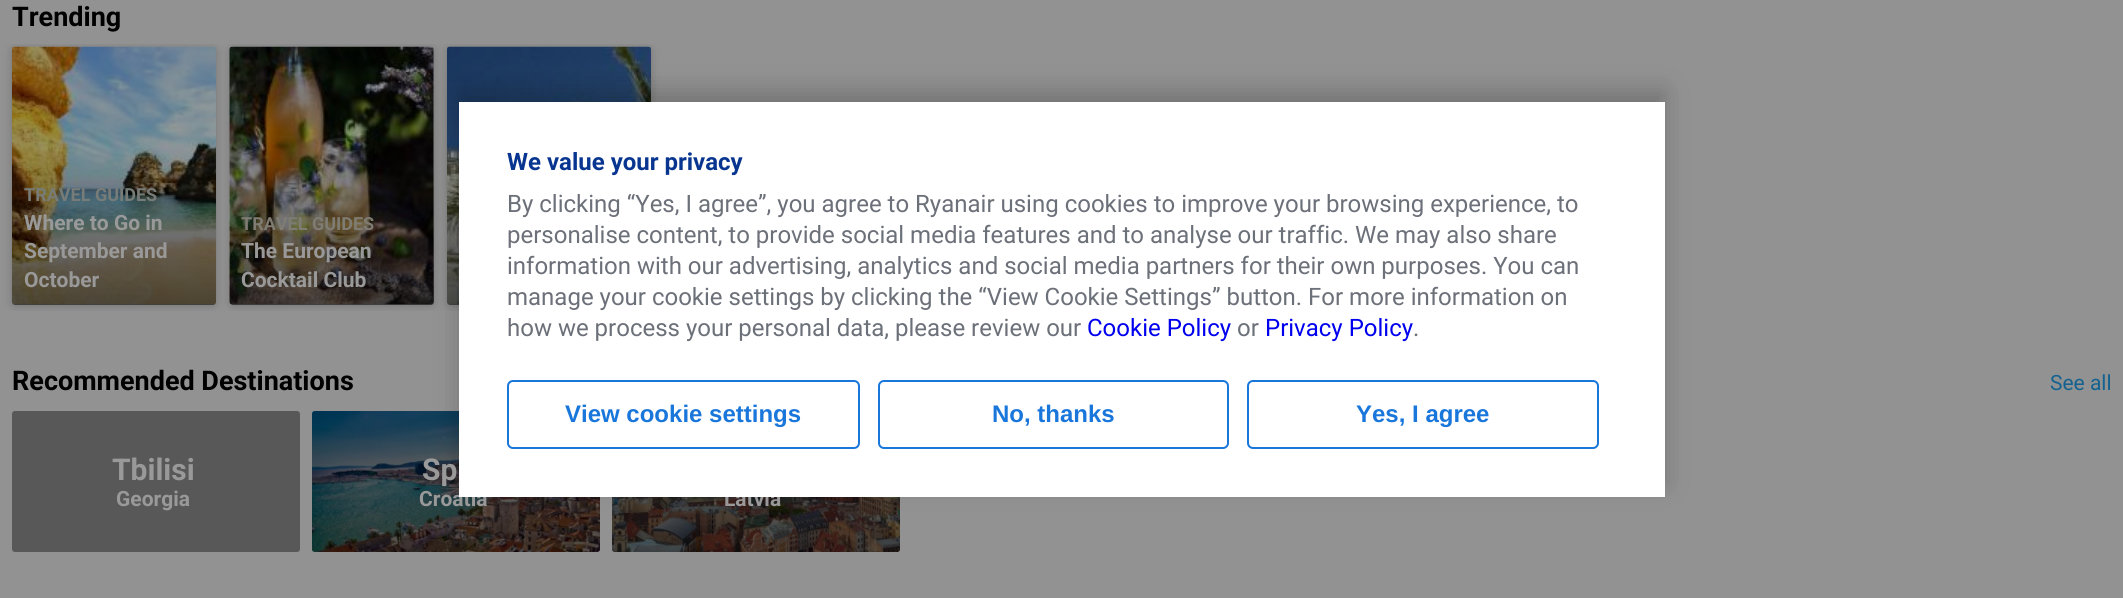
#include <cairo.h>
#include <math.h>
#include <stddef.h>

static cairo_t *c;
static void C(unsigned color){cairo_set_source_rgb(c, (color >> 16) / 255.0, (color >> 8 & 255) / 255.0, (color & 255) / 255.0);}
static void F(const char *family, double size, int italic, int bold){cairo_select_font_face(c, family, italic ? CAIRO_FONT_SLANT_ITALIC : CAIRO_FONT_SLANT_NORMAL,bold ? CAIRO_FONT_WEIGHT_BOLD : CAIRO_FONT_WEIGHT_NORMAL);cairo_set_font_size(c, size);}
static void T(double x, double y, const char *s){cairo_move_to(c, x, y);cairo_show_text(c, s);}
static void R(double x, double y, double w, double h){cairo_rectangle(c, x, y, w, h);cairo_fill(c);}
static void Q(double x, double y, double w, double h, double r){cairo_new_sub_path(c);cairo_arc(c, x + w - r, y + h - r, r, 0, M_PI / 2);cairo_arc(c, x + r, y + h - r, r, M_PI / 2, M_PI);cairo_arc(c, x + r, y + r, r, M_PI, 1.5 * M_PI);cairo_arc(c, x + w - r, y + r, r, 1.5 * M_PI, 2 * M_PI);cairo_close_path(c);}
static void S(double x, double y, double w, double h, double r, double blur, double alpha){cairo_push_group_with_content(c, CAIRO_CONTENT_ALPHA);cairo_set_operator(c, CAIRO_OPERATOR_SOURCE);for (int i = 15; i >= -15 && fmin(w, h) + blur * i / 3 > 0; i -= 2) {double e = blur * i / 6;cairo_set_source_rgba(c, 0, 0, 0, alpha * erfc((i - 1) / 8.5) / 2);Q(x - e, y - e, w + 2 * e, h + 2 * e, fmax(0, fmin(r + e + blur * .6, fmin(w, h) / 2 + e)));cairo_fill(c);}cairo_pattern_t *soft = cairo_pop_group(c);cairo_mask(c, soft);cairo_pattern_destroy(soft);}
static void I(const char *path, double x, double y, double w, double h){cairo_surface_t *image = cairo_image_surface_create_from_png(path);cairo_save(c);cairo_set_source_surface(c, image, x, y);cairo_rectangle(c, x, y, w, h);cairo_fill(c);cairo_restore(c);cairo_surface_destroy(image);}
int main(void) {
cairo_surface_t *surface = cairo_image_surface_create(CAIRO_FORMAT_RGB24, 2123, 598);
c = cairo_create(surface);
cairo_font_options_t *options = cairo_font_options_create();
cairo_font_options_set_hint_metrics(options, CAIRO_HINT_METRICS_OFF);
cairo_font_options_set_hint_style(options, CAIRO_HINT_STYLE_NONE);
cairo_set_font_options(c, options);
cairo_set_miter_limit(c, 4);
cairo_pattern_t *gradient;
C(0x929292);
cairo_paint(c);
F("Roboto",27,0,1);
C(0x000000);
T(12,26,"Trending");
cairo_save(c);
cairo_rectangle(c,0,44,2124,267);
cairo_clip(c);
C(0x000000);
S(12,48,204,258,3,4.5,.2);
cairo_restore(c);
I("1.png",12,46,204,259);
gradient = cairo_pattern_create_linear(114,150,114,305);
cairo_pattern_add_color_stop_rgba(gradient,0,0,0,0,0);
cairo_pattern_add_color_stop_rgba(gradient,1,0,0,0,.5);
cairo_set_source(c,gradient);
cairo_pattern_destroy(gradient);
cairo_new_path(c);
cairo_move_to(c,12,150);
cairo_line_to(c,216,150);
cairo_line_to(c,216,302);
cairo_curve_to(c,216,303.5,214.5,305,213,305);
cairo_line_to(c,15,305);
cairo_curve_to(c,13.5,305,12,303.5,12,302);
cairo_close_path(c);
cairo_fill(c);
F("Roboto",18,0,1);
C(0x777c79);
T(24,201,"TRAVEL GUIDES");
F("Roboto",21,0,1);
C(0x999999);
T(24,230,"Where to Go in");
T(24,258,"September and");
T(24,287,"October");
cairo_save(c);
cairo_rectangle(c,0,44,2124,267);
cairo_clip(c);
C(0x000000);
S(230,48,204,258,3,4.5,.2);
cairo_restore(c);
I("2.png",229,46,205,259);
gradient = cairo_pattern_create_linear(332,150,332,305);
cairo_pattern_add_color_stop_rgba(gradient,0,0,0,0,0);
cairo_pattern_add_color_stop_rgba(gradient,1,0,0,0,.5);
cairo_set_source(c,gradient);
cairo_pattern_destroy(gradient);
cairo_new_path(c);
cairo_move_to(c,230,150);
cairo_line_to(c,434,150);
cairo_line_to(c,434,302);
cairo_curve_to(c,434,303.5,432.5,305,431,305);
cairo_line_to(c,233,305);
cairo_curve_to(c,231.5,305,230,303.5,230,302);
cairo_close_path(c);
cairo_fill(c);
F("Roboto",18,0,1);
C(0x7f7c73);
T(241,230,"TRAVEL GUIDES");
F("Roboto",21,0,1);
C(0x999999);
T(241,258,"The European");
T(241,287,"Cocktail Club");
cairo_save(c);
cairo_rectangle(c,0,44,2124,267);
cairo_clip(c);
C(0x000000);
S(447,48,204,258,3,4.5,.2);
cairo_restore(c);
I("3.png",447,46,204,259);
gradient = cairo_pattern_create_linear(549,150,549,305);
cairo_pattern_add_color_stop_rgba(gradient,0,0,0,0,0);
cairo_pattern_add_color_stop_rgba(gradient,1,0,0,0,.5);
cairo_set_source(c,gradient);
cairo_pattern_destroy(gradient);
cairo_new_path(c);
cairo_move_to(c,447,150);
cairo_line_to(c,651,150);
cairo_line_to(c,651,302);
cairo_curve_to(c,651,303.5,649.5,305,648,305);
cairo_line_to(c,450,305);
cairo_curve_to(c,448.5,305,447,303.5,447,302);
cairo_close_path(c);
cairo_fill(c);
I("4.png",312,411,288,141);
cairo_set_source_rgba(c,0,0,0,0.4);
Q(312,411,288,141,3);
cairo_fill(c);
I("5.png",612,497,288,55);
Q(612,411,288,141,3);
cairo_fill(c);
C(0x000000);
S(459,90,1206,395,0,12,.2);
C(0x999999);
T(419,506,"Croatia");
T(724,506,"Latvia");
C(0xffffff);
R(459,102,1206,395);
F("Roboto",24,0,1);
C(0x073590);
T(507,170,"We value your privacy");
F("Roboto",24,0,0);
C(0x6c7079);
T(507,212,"By clicking “Yes, I agree”, you agree to Ryanair using cookies to improve your browsing experience, to");
T(507,243,"personalise content, to provide social media features and to analyse our traffic. We may also share");
T(507,274,"information with our advertising, analytics and social media partners for their own purposes. You can");
T(507,305,"manage your cookie settings by clicking the “View Cookie Settings” button. For more information on");
T(507,336,"how we process your personal data, please review our");
C(0x0000ee);
T(1087,336,"Cookie Policy");
C(0x6c7079);
T(1237,336,"or");
C(0x0000ee);
T(1265,336,"Privacy Policy");
C(0x6c7079);
T(1413,336,".");
Q(508,381,351,67,5);
C(0x1976db);
cairo_stroke(c);
F("Liberation Sans",24,0,1);
T(565,422,"View cookie settings");
Q(879,381,349,67,5);
cairo_stroke(c);
T(992,422,"No, thanks");
Q(1248,381,350,67,5);
cairo_stroke(c);
T(1356,422,"Yes, I agree");
F("Roboto",27,0,1);
C(0x000000);
T(12,390,"Recommended Destinations");
F("Roboto",21,0,0);
C(0x14628f);
T(2050,390,"See all");
C(0x585858);
Q(12,411,288,141,3);
cairo_fill(c);
F("Roboto",30,0,1);
C(0x999999);
T(112,480,"Tbilisi");
F("Roboto",21,0,1);
T(116,506,"Georgia");
F("Roboto",30,0,1);
T(422,480,"Sp");
cairo_surface_write_to_png(surface, "o.png");
cairo_font_options_destroy(options);
cairo_destroy(c);
cairo_surface_destroy(surface);
return 0;
}
